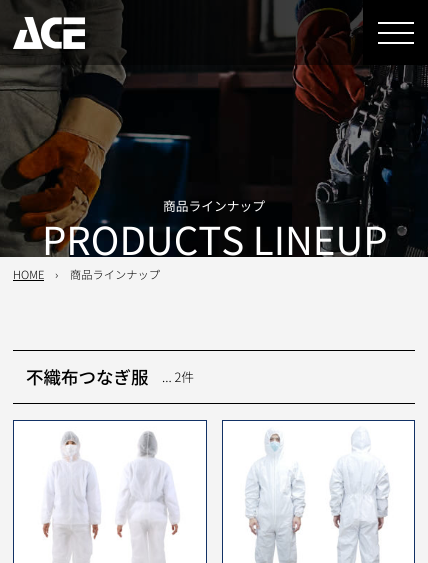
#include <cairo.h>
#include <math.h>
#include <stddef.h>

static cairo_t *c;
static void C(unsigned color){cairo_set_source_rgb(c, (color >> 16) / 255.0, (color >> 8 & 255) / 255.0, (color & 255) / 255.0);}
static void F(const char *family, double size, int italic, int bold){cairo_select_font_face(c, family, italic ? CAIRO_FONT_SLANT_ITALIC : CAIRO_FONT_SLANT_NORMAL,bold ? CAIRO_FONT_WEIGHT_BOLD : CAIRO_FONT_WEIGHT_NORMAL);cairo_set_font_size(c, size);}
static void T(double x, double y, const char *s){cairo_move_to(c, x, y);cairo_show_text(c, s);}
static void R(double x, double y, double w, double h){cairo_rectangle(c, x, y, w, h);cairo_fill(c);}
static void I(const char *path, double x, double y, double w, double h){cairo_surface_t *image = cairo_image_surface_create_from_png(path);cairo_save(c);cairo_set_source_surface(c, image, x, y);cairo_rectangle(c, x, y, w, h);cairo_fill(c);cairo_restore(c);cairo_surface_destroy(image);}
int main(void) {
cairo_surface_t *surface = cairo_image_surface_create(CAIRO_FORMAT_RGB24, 428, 563);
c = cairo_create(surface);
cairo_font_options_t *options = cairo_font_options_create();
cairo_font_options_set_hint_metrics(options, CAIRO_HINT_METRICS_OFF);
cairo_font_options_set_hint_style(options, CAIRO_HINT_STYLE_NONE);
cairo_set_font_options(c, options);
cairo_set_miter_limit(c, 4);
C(0xf4f4f4);
cairo_paint(c);
I("3.png",0,0,428,257);
cairo_set_source_rgba(c,0,0,0,0.5);
R(0,0,363,65);
I("1.png",13,17,72,32);
C(0x000000);
R(363,0,65,65);
I("2.png",378,22,36,22);
F("Noto Sans JP",12.75,0,0);
C(0xffffff);
T(163,211,"商品ラインナップ");
F("Noto Sans JP",38.5,0,0);
T(42,255,"PRODUCTS LINEUP");
F("Noto Sans JP Light",11.25,0,0);
C(0x000000);
T(13,279,"HOME");
R(13,280,31,1);
T(55,279,"›");
T(70,279,"商品ラインナップ");
R(13,350,402,1);
R(13,403,402,1);
F("Noto Sans JP Medium",17.5,0,0);
T(26,384,"不織布つなぎ服");
F("Noto Sans JP Light",12.75,0,0);
T(162,382,"... 2件");
cairo_rectangle(c,13.5,420.5,193,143);
C(0x123165);
cairo_set_line_width(c,1);
cairo_stroke(c);
I("4.png",14,421,192,142);
cairo_rectangle(c,222.5,420.5,192,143);
cairo_stroke(c);
I("5.png",223,421,191,142);
cairo_surface_write_to_png(surface, "o.png");
cairo_font_options_destroy(options);
cairo_destroy(c);
cairo_surface_destroy(surface);
return 0;
}
